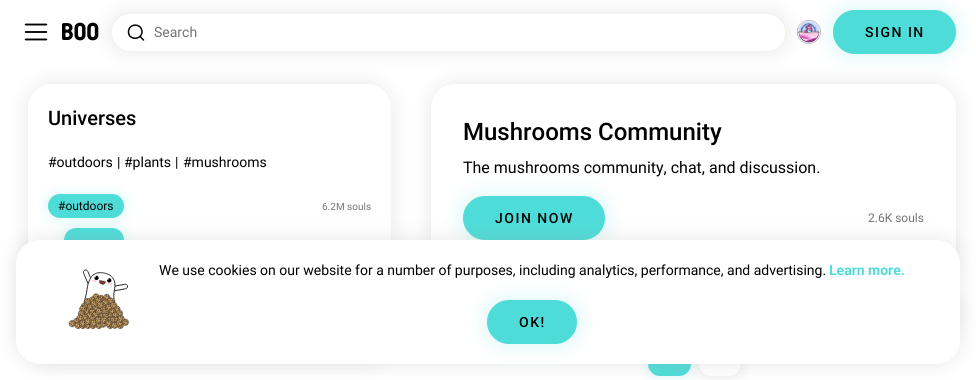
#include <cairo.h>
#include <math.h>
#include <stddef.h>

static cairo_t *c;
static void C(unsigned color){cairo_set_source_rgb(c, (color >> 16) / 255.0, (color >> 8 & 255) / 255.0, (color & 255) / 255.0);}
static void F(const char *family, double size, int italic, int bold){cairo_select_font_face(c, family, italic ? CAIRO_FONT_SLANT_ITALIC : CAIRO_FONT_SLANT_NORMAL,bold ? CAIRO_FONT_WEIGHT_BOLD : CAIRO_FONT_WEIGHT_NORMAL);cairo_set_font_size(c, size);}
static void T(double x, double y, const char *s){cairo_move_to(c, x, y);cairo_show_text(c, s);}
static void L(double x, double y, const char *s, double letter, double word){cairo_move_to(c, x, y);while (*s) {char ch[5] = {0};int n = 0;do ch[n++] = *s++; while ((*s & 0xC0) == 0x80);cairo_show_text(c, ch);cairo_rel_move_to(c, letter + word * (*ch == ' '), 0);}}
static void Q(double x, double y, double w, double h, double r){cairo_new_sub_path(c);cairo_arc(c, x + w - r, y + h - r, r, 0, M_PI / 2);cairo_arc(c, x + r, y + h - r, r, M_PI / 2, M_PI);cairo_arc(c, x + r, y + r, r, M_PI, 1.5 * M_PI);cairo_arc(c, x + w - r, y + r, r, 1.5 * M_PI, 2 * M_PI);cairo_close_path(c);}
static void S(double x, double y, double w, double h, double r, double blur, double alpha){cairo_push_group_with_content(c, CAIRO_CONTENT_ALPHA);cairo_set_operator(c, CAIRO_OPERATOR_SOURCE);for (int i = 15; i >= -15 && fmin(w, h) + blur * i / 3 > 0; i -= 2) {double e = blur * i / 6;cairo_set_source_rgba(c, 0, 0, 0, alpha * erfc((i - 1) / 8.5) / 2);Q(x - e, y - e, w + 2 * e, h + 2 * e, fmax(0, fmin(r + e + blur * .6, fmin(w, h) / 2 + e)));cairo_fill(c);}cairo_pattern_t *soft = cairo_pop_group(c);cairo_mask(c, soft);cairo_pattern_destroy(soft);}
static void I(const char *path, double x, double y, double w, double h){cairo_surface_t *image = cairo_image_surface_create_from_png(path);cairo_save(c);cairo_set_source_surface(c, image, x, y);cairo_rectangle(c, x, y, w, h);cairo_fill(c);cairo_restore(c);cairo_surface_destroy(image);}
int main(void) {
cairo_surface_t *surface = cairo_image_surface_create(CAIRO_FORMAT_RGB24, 976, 380);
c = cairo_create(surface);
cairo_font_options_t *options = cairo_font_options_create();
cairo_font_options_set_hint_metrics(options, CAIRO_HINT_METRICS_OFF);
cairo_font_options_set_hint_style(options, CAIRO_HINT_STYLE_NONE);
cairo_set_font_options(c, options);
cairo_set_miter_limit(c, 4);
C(0xffffff);
cairo_paint(c);
I("1.png",24,23,24,18);
F("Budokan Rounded",24,0,1);
C(0x000000);
T(62,40,"Boo");
C(0x9e9e9e);
S(112,14,673,37,18.5,10,.25);
C(0xffffff);
Q(112,14,673,37,18.5);
cairo_fill(c);
cairo_new_path(c);
cairo_move_to(c,143.5,40);
cairo_line_to(c,140,36.5);
cairo_move_to(c,142,31.5);
cairo_curve_to(c,142,40.5,128,40.5,128.5,31.5);
cairo_curve_to(c,129,23,141.5,23,142,31.5);
cairo_close_path(c);
C(0x000000);
cairo_set_line_width(c,1.5);
cairo_set_line_cap(c,CAIRO_LINE_CAP_ROUND);
cairo_set_line_join(c,CAIRO_LINE_JOIN_ROUND);
cairo_stroke(c);
F("Roboto",14,0,0);
C(0x757575);
T(154,37,"Search");
C(0x9e9e9e);
S(431,84,525,188,24,10,.25);
C(0xffffff);
Q(431,84,525,188,24);
cairo_fill(c);
C(0x4edcd8);
S(833,10,123,44,22,10,.25);
I("2.png",797,20,24,24);
C(0x4edcd8);
Q(833,10,123,44,22);
cairo_fill(c);
F("Roboto Medium",14,0,0);
C(0x000000);
L(865,37,"SIGN IN",1.5,0);
cairo_save(c);
cairo_set_fill_rule(c,CAIRO_FILL_RULE_EVEN_ODD);
cairo_new_path(c);
cairo_move_to(c,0,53);
cairo_line_to(c,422,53);
cairo_line_to(c,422,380);
cairo_line_to(c,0,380);
cairo_close_path(c);
cairo_move_to(c,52,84);
cairo_line_to(c,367,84);
cairo_curve_to(c,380.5,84,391,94.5,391,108);
cairo_line_to(c,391,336);
cairo_curve_to(c,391,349.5,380.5,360,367,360);
cairo_line_to(c,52,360);
cairo_curve_to(c,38.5,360,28,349.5,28,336);
cairo_line_to(c,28,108);
cairo_curve_to(c,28,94.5,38.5,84,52,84);
cairo_close_path(c);
cairo_clip(c);
C(0x9e9e9e);
S(28,84,363,276,24,10,.25);
cairo_restore(c);
F("Roboto Medium",20,0,0);
T(48,125,"Universes");
F("Roboto",14,0,0);
T(48,167,"#outdoors");
T(117,167,"|");
T(124,167,"#plants");
T(175,167,"|");
T(183,167,"#mushrooms");
C(0x4edcd8);
S(48,194,76,24,12,6,.25);
C(0x4edcd8);
Q(48,194,76,24,12);
cairo_fill(c);
F("Roboto",12,0,0);
C(0x000000);
T(58,210,"#outdoors");
F("Roboto",10,0,0);
C(0x757575);
T(322,210,"6.2M souls");
C(0x4edcd8);
S(64,228,60,24,12,6,.25);
C(0x4edcd8);
Q(64,228,60,24,12);
cairo_fill(c);
F("Roboto Medium",24,0,0);
C(0x000000);
T(463,140,"Mushrooms Community");
F("Roboto",16,0,0);
T(463,173,"The mushrooms community, chat, and discussion.");
C(0x4edcd8);
S(463,196,142,44,22,10,.25);
C(0x4edcd8);
Q(463,196,142,44,22);
cairo_fill(c);
F("Roboto Medium",14,0,0);
C(0x000000);
L(495,223,"JOIN NOW",1.5,0);
F("Roboto",12,0,0);
C(0x757575);
T(868,222,"2.6K souls");
C(0x4edcd8);
S(648,352,43,24,12,6,.25);
C(0x4edcd8);
Q(648,352,43,24,12);
cairo_fill(c);
C(0x9e9e9e);
S(699,352,42,24,12,6,.25);
C(0xffffff);
Q(699,352,42,24,12);
cairo_fill(c);
C(0x9e9e9e);
S(885,302,71,24,12,10,.25);
S(16,240,944,124,24,10,.25);
C(0xffffff);
Q(16,240,944,124,24);
cairo_fill(c);
I("3.png",68,269,62,61);
F("Roboto",14,0,0);
C(0x000000);
T(159,275,"We use cookies on our website for a number of purposes, including analytics, performance, and advertising.");
F("Roboto",14,0,1);
C(0x4edcd8);
T(829,275,"Learn more.");
C(0x4edcd8);
S(487,300,90,44,22,10,.25);
C(0x4edcd8);
Q(487,300,90,44,22);
cairo_fill(c);
F("Roboto Medium",14,0,0);
C(0x000000);
L(519,327,"OK!",1.5,0);
cairo_surface_write_to_png(surface, "o.png");
cairo_font_options_destroy(options);
cairo_destroy(c);
cairo_surface_destroy(surface);
return 0;
}
